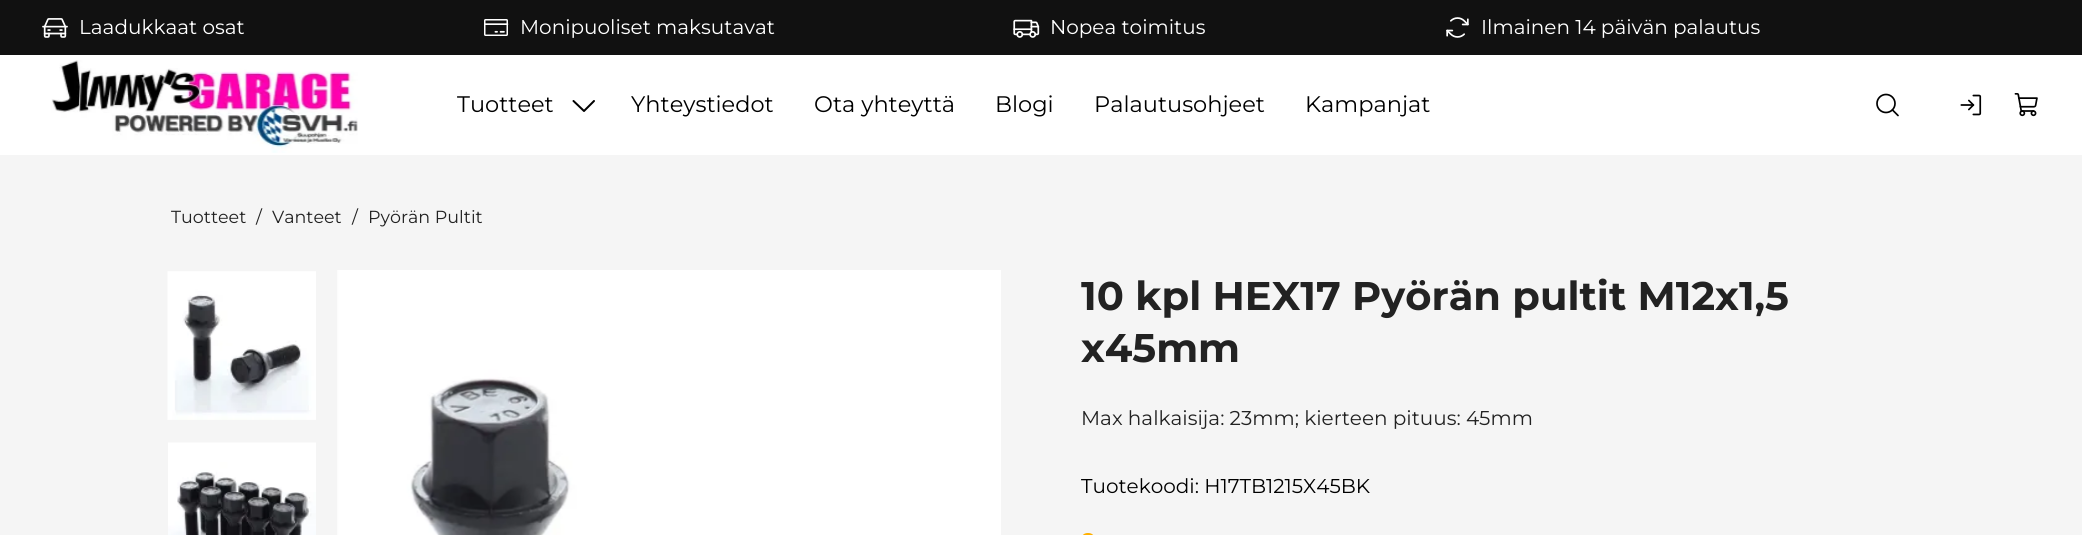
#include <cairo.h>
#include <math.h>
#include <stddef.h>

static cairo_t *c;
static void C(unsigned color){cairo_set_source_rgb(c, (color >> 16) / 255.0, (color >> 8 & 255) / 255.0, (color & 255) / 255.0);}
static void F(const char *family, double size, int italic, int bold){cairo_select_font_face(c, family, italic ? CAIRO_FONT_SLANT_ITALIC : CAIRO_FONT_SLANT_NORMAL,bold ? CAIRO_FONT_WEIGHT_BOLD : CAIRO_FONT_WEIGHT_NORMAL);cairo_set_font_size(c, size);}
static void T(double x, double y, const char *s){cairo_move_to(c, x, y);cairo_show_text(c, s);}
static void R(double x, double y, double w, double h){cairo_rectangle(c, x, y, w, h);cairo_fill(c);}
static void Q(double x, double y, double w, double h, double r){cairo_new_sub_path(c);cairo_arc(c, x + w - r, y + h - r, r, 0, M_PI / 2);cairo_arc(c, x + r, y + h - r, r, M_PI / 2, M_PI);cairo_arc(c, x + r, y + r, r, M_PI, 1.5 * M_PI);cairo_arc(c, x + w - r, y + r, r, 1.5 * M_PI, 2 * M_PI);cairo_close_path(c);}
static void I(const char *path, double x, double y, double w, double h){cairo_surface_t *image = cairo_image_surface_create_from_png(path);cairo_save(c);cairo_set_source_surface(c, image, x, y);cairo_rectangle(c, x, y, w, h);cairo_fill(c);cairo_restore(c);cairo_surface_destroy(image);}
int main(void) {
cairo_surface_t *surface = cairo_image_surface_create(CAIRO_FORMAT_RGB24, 2082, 535);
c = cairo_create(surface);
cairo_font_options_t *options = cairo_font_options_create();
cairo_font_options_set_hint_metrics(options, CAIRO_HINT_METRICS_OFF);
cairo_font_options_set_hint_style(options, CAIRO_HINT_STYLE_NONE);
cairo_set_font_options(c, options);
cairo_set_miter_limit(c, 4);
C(0xffffff);
cairo_paint(c);
C(0x111111);
R(0,0,2082,55);
I("1.png",42,18,26,20);
F("Montserrat Thin",20,0,0);
C(0xffffff);
T(79,34,"Laadukkaat osat");
I("2.png",484,19,25,17);
T(520,34,"Monipuoliset maksutavat");
I("3.png",1013,19,27,19);
T(1050,34,"Nopea toimitus");
I("4.png",1446,17,23,21);
T(1481,34,"Ilmainen 14 päivän palautus");
I("5.png",51,60,307,93);
F("Montserrat Thin",22.5,0,0);
C(0x000000);
T(457,112,"Tuotteet");
cairo_new_path(c);
cairo_move_to(c,594,101);
cairo_line_to(c,584,111);
cairo_line_to(c,573.5,101);
cairo_set_line_cap(c,CAIRO_LINE_CAP_ROUND);
cairo_set_line_join(c,CAIRO_LINE_JOIN_ROUND);
cairo_stroke(c);
T(631,112,"Yhteystiedot");
T(814,112,"Ota yhteyttä");
T(995,112,"Blogi");
T(1094,112,"Palautusohjeet");
T(1305,112,"Kampanjat");
cairo_new_path(c);
cairo_arc(c,1886,103.5,9,0,2 * M_PI);
cairo_set_line_width(c,1.7);
cairo_set_line_cap(c,CAIRO_LINE_CAP_BUTT);
cairo_set_line_join(c,CAIRO_LINE_JOIN_MITER);
cairo_stroke(c);
cairo_new_path(c);
cairo_move_to(c,1892.5,110);
cairo_line_to(c,1898,115.5);
cairo_set_line_cap(c,CAIRO_LINE_CAP_ROUND);
cairo_set_line_join(c,CAIRO_LINE_JOIN_ROUND);
cairo_stroke(c);
I("6.png",1960,94,22,22);
I("7.png",2014,93,24,24);
C(0xf5f5f5);
R(0,155,2082,380);
F("Montserrat Thin",17.5,0,0);
C(0x222222);
T(171,223,"Tuotteet");
T(256,223,"/");
T(272,223,"Vanteet");
T(352,223,"/");
T(368,223,"Pyörän Pultit");
I("8.png",167,271,149,149);
I("9.png",168,442,148,93);
I("10.png",337,270,664,265);
F("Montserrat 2 Thin",40,0,0);
T(1081,310,"10 kpl HEX17 Pyörän pultit M12x1,5");
T(1081,362,"x45mm");
F("Montserrat Thin",20,0,0);
T(1081,425,"Max halkaisija: 23mm; kierteen pituus: 45mm");
C(0x000000);
T(1081,493,"Tuotekoodi: H17TB1215X45BK");
C(0xffb000);
Q(1081,533,14,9,6.5);
cairo_fill(c);
cairo_surface_write_to_png(surface, "o.png");
cairo_font_options_destroy(options);
cairo_destroy(c);
cairo_surface_destroy(surface);
return 0;
}
